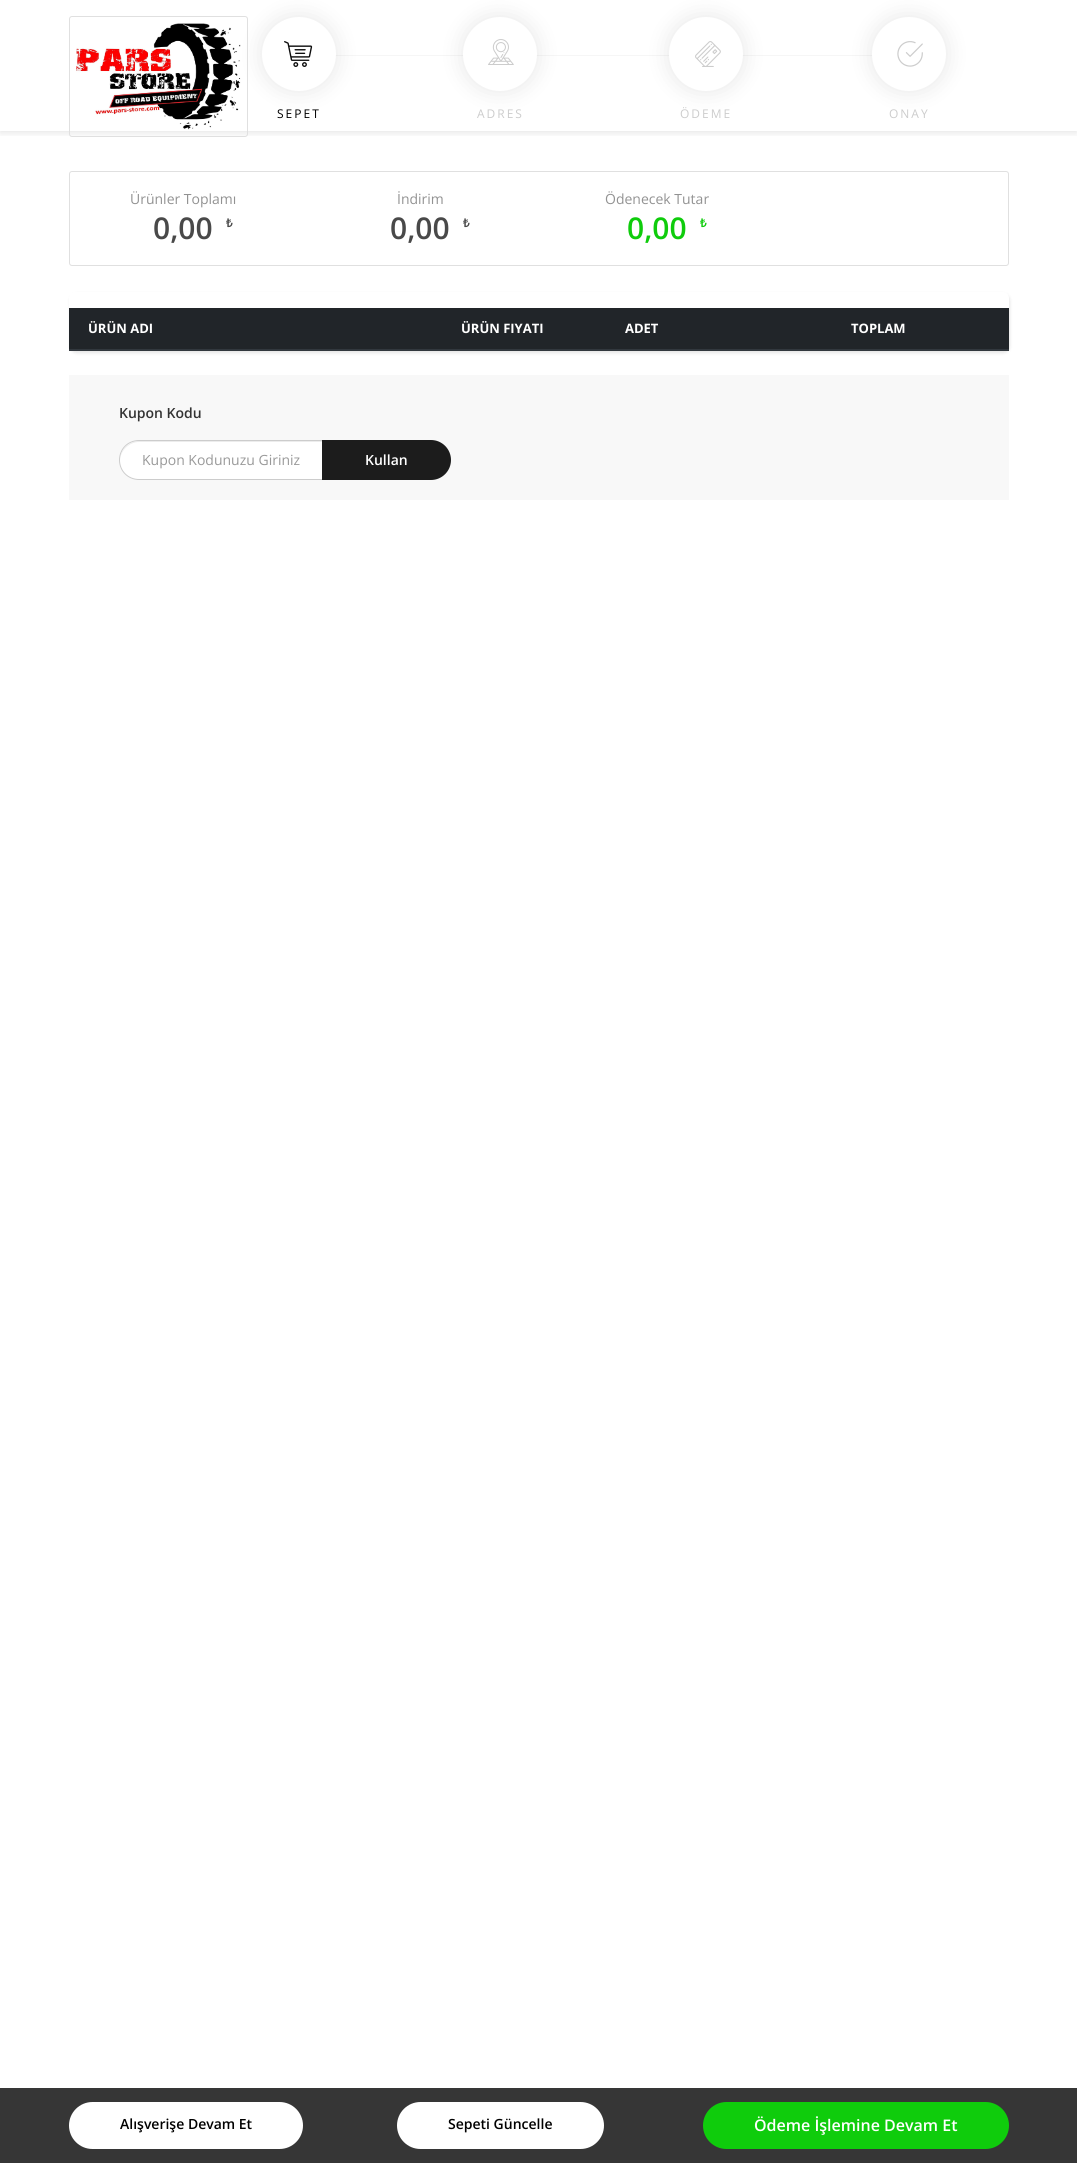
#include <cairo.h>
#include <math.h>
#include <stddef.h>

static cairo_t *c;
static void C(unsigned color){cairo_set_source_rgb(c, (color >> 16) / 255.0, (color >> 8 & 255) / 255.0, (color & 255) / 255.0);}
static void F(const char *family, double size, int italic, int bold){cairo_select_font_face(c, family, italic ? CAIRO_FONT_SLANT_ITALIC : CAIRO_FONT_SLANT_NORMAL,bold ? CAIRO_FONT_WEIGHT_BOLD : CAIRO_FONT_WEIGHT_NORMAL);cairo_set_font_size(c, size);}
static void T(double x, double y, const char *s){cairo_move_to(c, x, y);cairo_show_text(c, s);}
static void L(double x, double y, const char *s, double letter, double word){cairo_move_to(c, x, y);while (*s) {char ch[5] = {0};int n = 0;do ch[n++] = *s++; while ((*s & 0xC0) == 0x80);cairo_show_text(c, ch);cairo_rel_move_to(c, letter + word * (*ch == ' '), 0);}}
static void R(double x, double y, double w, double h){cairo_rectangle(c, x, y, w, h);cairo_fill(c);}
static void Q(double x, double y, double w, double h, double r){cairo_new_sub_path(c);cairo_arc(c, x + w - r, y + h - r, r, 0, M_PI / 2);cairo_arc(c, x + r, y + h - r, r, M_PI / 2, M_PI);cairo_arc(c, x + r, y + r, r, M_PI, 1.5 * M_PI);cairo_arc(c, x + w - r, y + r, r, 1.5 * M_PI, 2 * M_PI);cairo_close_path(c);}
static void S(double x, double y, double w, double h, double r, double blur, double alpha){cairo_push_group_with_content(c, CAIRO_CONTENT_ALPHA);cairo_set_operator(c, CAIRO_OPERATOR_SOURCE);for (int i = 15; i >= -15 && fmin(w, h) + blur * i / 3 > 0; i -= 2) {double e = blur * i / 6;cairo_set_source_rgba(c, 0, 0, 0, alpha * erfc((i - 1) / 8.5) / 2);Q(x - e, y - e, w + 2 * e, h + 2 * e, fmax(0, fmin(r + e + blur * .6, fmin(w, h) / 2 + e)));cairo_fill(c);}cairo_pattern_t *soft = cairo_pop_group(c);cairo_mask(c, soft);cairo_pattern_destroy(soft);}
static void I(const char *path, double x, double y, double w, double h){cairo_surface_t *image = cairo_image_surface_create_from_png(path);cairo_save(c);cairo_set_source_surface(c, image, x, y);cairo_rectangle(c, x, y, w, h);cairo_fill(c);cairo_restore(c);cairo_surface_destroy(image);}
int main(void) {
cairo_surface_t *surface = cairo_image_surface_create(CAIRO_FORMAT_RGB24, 1077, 2163);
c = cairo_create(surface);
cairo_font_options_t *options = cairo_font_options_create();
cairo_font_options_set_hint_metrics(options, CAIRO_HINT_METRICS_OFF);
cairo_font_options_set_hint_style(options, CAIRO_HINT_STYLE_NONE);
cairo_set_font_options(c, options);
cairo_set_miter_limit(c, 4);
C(0xffffff);
cairo_paint(c);
cairo_save(c);
cairo_rectangle(c,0,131,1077,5);
cairo_clip(c);
C(0x000000);
S(0,2,1077,131,0,3.5,.1);
cairo_restore(c);
C(0xf6f6f6);
R(335,55,129,1);
C(0x000000);
S(262,17,74,74,37,11,.1);
Q(69.5,16.5,178,120,2.5);
C(0xe0e0e0);
cairo_set_line_width(c,1);
cairo_stroke(c);
I("1.png",76,23,165,107);
C(0xffffff);
cairo_arc(c,299,54,37,0,2 * M_PI);
cairo_fill(c);
I("2.png",284,41,29,26);
F("Open Sans",12,0,0);
C(0x000000);
L(277,118,"SEPET",2,0);
C(0xf6f6f6);
R(536,55,134,1);
C(0x000000);
S(463,17,74,74,37,11,.1);
C(0xffffff);
cairo_arc(c,500,54,37,0,2 * M_PI);
cairo_fill(c);
I("3.png",488,39,26,26);
C(0xcccccc);
L(477,118,"ADRES",2,0);
C(0xf6f6f6);
R(742,55,131,1);
C(0x000000);
S(669,17,74,74,37,11,.1);
C(0xffffff);
cairo_arc(c,706,54,37,0,2 * M_PI);
cairo_fill(c);
I("4.png",695,41,26,26);
C(0xcccccc);
L(680,118,"ÖDEME",2,0);
C(0x000000);
S(872,17,74,74,37,11,.1);
C(0xffffff);
cairo_arc(c,909,54,37,0,2 * M_PI);
cairo_fill(c);
I("5.png",897,41,26,26);
C(0xcccccc);
L(889,118,"ONAY",2,0);
Q(69.5,171.5,939,94,2.5);
C(0xe0e0e0);
cairo_stroke(c);
F("Open Sans",14,0,0);
C(0x929292);
T(130,204,"Ürünler Toplamı");
F("Open Sans SemiBold",30,0,0);
C(0x494949);
T(153,239,"0,00");
F("Noto Sans SemiBold",12,0,0);
T(226,227,"₺");
F("Open Sans",14,0,0);
C(0x929292);
T(397,204,"İndirim");
F("Open Sans SemiBold",30,0,0);
C(0x494949);
T(390,239,"0,00");
F("Noto Sans SemiBold",12,0,0);
T(463,227,"₺");
F("Open Sans",14,0,0);
C(0x929292);
T(605,204,"Ödenecek Tutar");
F("Open Sans SemiBold",30,0,0);
C(0x0fcc0c);
T(627,239,"0,00");
F("Noto Sans SemiBold",12,0,0);
T(700,227,"₺");
C(0x000000);
S(70,294,940,59,6,1.5,.1);
C(0xffffff);
Q(69,292,940,59,6);
cairo_fill(c);
C(0x212529);
R(69,308,940,41);
F("Open Sans",13,0,1);
C(0xffffff);
T(88,333,"ÜRÜN ADI");
T(461,333,"ÜRÜN FIYATI");
T(625,333,"ADET");
T(851,333,"TOPLAM");
C(0x32383e);
R(69,349,940,2);
C(0xf8f8f8);
R(69,375,940,125);
F("Open Sans SemiBold",14,0,0);
C(0x333333);
T(119,418,"Kupon Kodu");
C(0xffffff);
cairo_new_path(c);
cairo_move_to(c,139,440);
cairo_line_to(c,323,440);
cairo_line_to(c,323,480);
cairo_line_to(c,139,480);
cairo_curve_to(c,128,480,119,471,119,460);
cairo_curve_to(c,119,449,128,440,139,440);
cairo_close_path(c);
cairo_fill(c);
C(0xececec);
cairo_new_path(c);
cairo_move_to(c,139,442);
cairo_line_to(c,322,442);
cairo_line_to(c,322,441);
cairo_line_to(c,139,441);
cairo_curve_to(c,129,441,120,450,120,460);
cairo_line_to(c,120,461);
cairo_curve_to(c,120,451,129,442,139,442);
cairo_close_path(c);
cairo_fill(c);
cairo_new_path(c);
cairo_move_to(c,139,440.5);
cairo_line_to(c,322.5,440.5);
cairo_line_to(c,322.5,479.5);
cairo_line_to(c,139,479.5);
cairo_curve_to(c,128,479.5,119.5,471,119.5,460);
cairo_curve_to(c,119.5,449,128,440.5,139,440.5);
cairo_close_path(c);
C(0xcccccc);
cairo_stroke(c);
F("Open Sans",14,0,0);
C(0x999999);
T(142,465,"Kupon Kodunuzu Giriniz");
C(0x1c1c1c);
cairo_new_path(c);
cairo_move_to(c,322,440);
cairo_line_to(c,431,440);
cairo_curve_to(c,442,440,451,449,451,460);
cairo_curve_to(c,451,471,442,480,431,480);
cairo_line_to(c,322,480);
cairo_close_path(c);
cairo_fill(c);
F("Open Sans SemiBold",14,0,0);
C(0xffffff);
T(365,465,"Kullan");
C(0x363636);
R(0,2088,1077,75);
C(0xffffff);
Q(69,2102,234,47,23.5);
cairo_fill(c);
C(0x000000);
T(120,2129,"Alışverişe Devam Et");
C(0xffffff);
Q(397,2102,207,47,23.5);
cairo_fill(c);
C(0x000000);
T(448,2129,"Sepeti Güncelle");
C(0x0fcc0c);
Q(703,2102,306,47,23.5);
cairo_fill(c);
F("Open Sans SemiBold",16,0,0);
C(0xffffff);
T(754,2131,"Ödeme İşlemine Devam Et");
cairo_surface_write_to_png(surface, "o.png");
cairo_font_options_destroy(options);
cairo_destroy(c);
cairo_surface_destroy(surface);
return 0;
}
